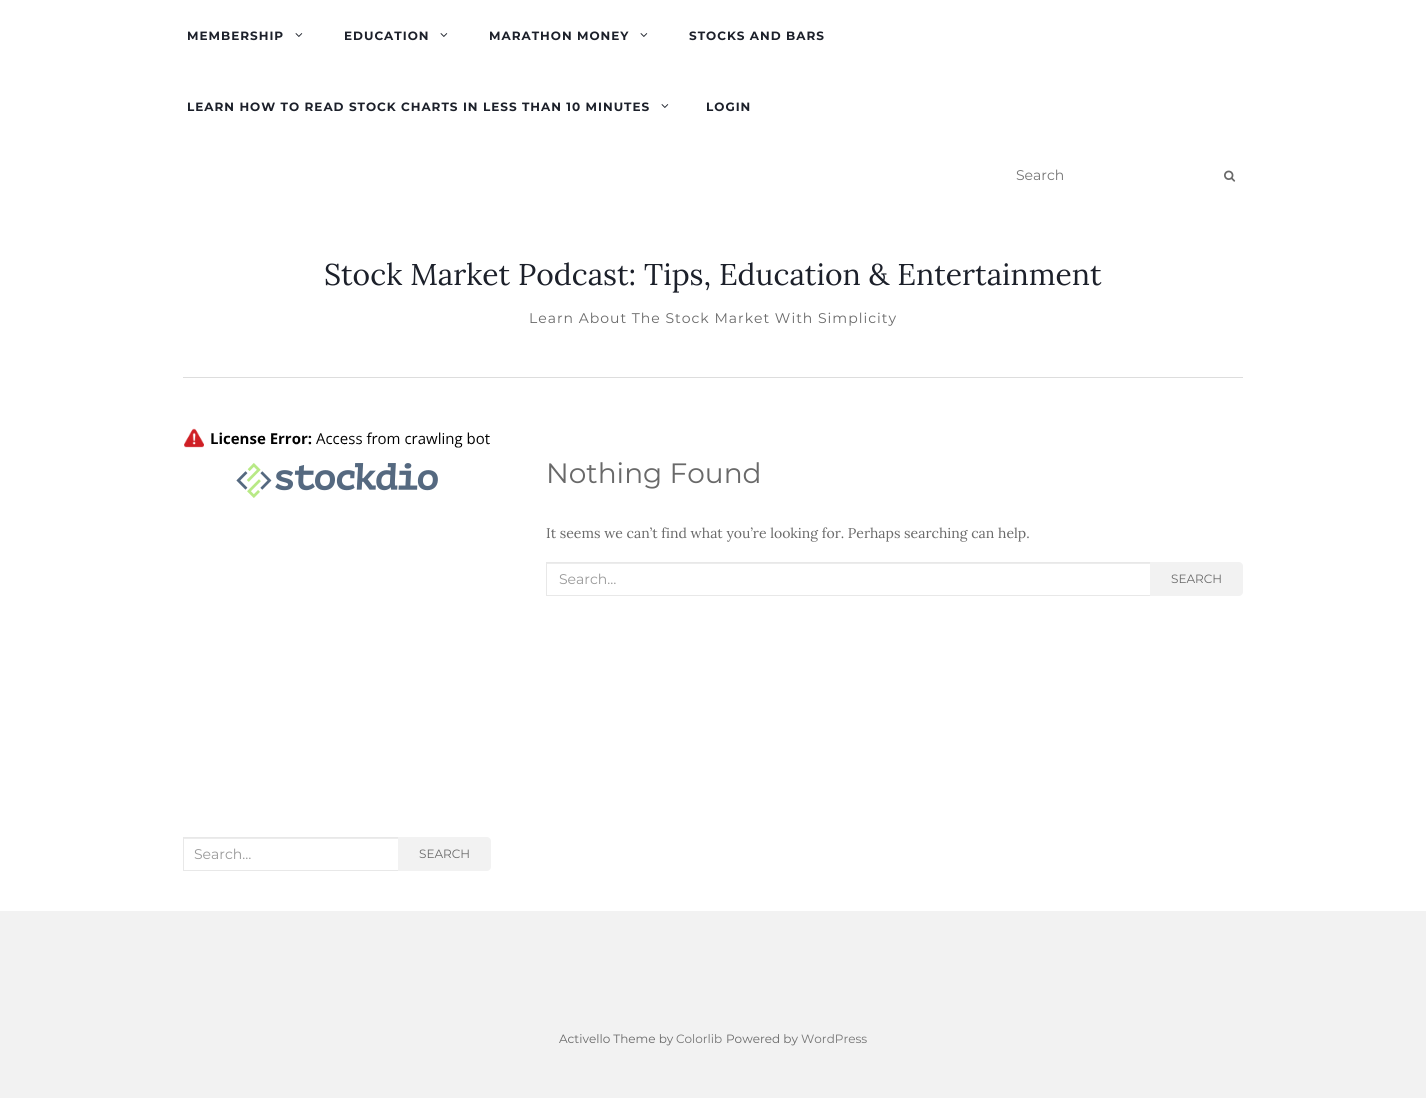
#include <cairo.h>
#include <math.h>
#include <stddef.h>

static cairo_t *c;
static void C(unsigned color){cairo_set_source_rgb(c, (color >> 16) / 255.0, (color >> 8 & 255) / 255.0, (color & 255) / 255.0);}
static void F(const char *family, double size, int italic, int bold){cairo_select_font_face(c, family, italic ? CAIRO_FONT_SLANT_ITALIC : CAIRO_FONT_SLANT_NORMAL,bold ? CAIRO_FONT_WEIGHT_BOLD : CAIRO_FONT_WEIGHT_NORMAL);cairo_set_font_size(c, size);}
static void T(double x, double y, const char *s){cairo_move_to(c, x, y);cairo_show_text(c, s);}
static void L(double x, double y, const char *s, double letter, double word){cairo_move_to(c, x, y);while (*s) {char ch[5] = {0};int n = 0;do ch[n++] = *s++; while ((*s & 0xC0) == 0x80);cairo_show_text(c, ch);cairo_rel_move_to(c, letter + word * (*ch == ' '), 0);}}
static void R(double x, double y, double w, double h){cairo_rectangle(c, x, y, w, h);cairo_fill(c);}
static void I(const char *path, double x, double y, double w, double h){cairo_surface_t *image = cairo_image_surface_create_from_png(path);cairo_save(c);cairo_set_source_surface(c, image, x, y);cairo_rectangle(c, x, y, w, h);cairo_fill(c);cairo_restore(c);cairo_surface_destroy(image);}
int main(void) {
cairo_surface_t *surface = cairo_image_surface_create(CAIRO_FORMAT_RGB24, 1426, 1098);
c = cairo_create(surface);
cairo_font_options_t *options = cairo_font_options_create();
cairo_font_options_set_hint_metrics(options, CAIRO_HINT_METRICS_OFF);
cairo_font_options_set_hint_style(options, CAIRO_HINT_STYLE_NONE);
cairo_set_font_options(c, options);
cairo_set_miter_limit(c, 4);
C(0xffffff);
cairo_paint(c);
F("Montserrat",12,0,1);
C(0x1c202a);
L(187,40,"MEMBERSHIP",1,0);
I("1.png",295,33,8,4);
L(344,40,"EDUCATION",1,0);
I("1.png",440,33,8,4);
L(489,40,"MARATHON MONEY",1,0);
I("1.png",640,33,8,4);
L(689,40,"STOCKS AND BARS",1,0);
L(187,111,"LEARN HOW TO READ STOCK CHARTS IN LESS THAN 10 MINUTES",1,0);
I("1.png",661,104,8,4);
L(706,111,"LOGIN",1,0);
F("Montserrat",14,0,0);
C(0x757575);
T(1016,180,"Search");
I("2.png",1224,170,12,12);
F("Lora",30,0,0);
C(0x1c202a);
T(324,285,"Stock Market Podcast: Tips, Education & Entertainment");
F("Montserrat",14,0,0);
C(0x696969);
L(529,323,"Learn About The Stock Market With Simplicity",1,0);
C(0xdddddd);
R(183,377,1060,1);
F("Montserrat",28,0,0);
C(0x696969);
T(546,483,"Nothing Found");
F("Lora",14,0,0);
T(546,538,"It seems we can’t find what you’re looking for. Perhaps searching can help.");
C(0xececec);
R(547,563,603,1);
cairo_rectangle(c,546.5,562.5,604,33);
C(0xe8e8e8);
cairo_set_line_width(c,1);
cairo_stroke(c);
F("Montserrat",14,0,0);
C(0x999999);
T(559,584,"Search…");
C(0xf2f2f2);
cairo_new_path(c);
cairo_move_to(c,1150,562);
cairo_line_to(c,1239,562);
cairo_curve_to(c,1241,562,1243,564,1243,566);
cairo_line_to(c,1243,592);
cairo_curve_to(c,1243,594,1241,596,1239,596);
cairo_line_to(c,1150,596);
cairo_close_path(c);
cairo_fill(c);
F("Montserrat",12,0,0);
C(0x696969);
T(1171,583,"SEARCH");
I("3.png",184,428,306,70);
C(0xececec);
R(184,838,214,1);
cairo_rectangle(c,183.5,837.5,215,33);
C(0xe8e8e8);
cairo_stroke(c);
F("Montserrat",14,0,0);
C(0x999999);
T(194,859,"Search…");
C(0xf2f2f2);
cairo_new_path(c);
cairo_move_to(c,398,837);
cairo_line_to(c,487,837);
cairo_curve_to(c,489,837,491,839,491,841);
cairo_line_to(c,491,867);
cairo_curve_to(c,491,869,489,871,487,871);
cairo_line_to(c,398,871);
cairo_close_path(c);
cairo_fill(c);
F("Montserrat",12,0,0);
C(0x696969);
T(419,858,"SEARCH");
C(0xf2f2f2);
R(0,911,1426,187);
C(0x696969);
T(559,1043,"Activello Theme by");
C(0x757575);
T(676,1043,"Colorlib");
C(0x696969);
T(726,1043,"Powered by");
C(0x757575);
T(801,1043,"WordPress");
cairo_surface_write_to_png(surface, "o.png");
cairo_font_options_destroy(options);
cairo_destroy(c);
cairo_surface_destroy(surface);
return 0;
}
